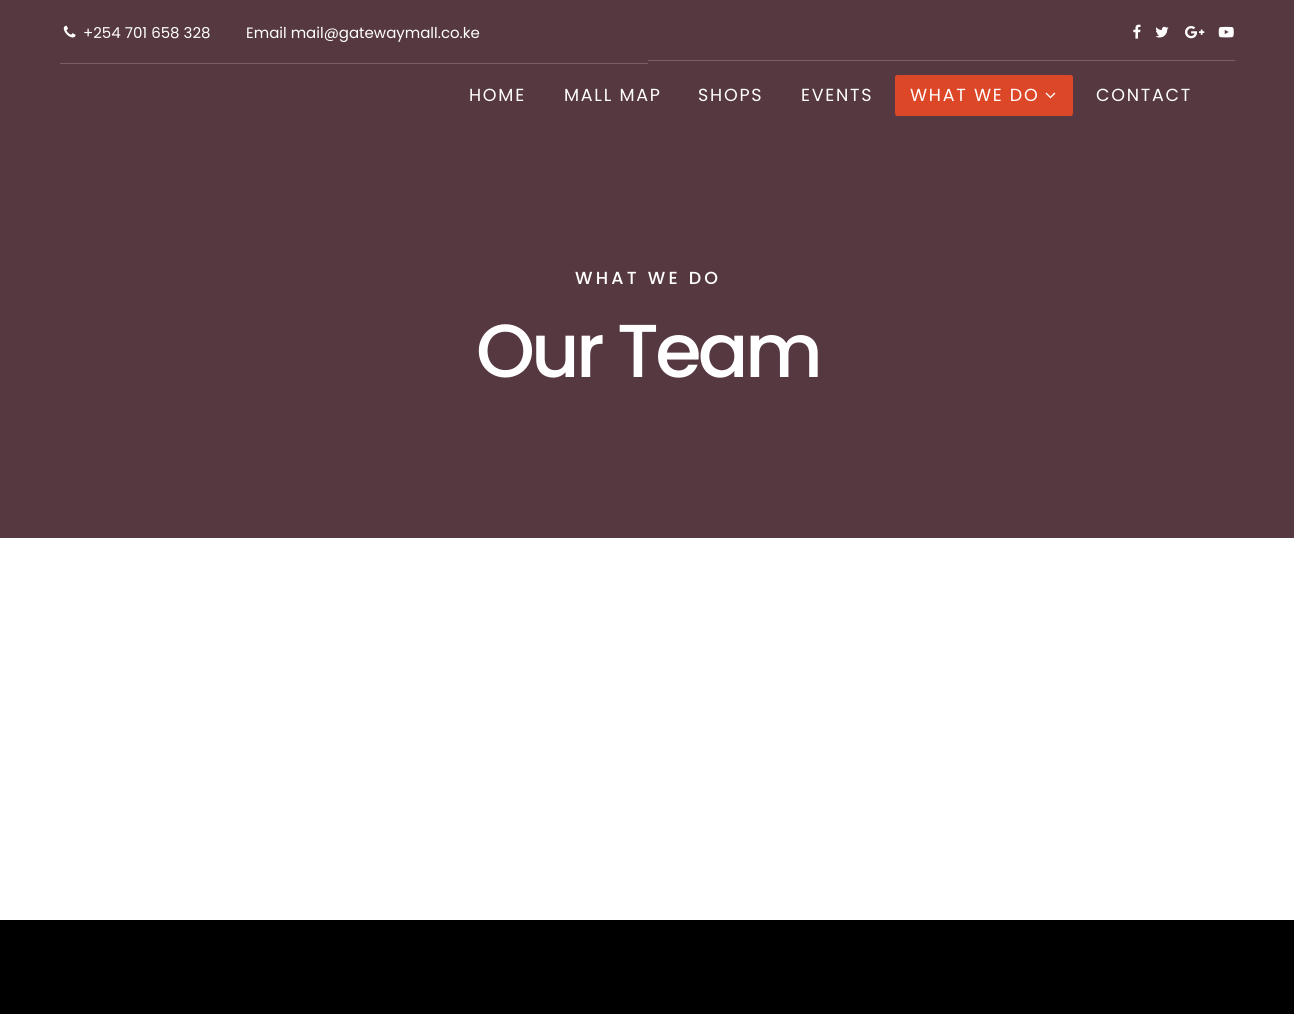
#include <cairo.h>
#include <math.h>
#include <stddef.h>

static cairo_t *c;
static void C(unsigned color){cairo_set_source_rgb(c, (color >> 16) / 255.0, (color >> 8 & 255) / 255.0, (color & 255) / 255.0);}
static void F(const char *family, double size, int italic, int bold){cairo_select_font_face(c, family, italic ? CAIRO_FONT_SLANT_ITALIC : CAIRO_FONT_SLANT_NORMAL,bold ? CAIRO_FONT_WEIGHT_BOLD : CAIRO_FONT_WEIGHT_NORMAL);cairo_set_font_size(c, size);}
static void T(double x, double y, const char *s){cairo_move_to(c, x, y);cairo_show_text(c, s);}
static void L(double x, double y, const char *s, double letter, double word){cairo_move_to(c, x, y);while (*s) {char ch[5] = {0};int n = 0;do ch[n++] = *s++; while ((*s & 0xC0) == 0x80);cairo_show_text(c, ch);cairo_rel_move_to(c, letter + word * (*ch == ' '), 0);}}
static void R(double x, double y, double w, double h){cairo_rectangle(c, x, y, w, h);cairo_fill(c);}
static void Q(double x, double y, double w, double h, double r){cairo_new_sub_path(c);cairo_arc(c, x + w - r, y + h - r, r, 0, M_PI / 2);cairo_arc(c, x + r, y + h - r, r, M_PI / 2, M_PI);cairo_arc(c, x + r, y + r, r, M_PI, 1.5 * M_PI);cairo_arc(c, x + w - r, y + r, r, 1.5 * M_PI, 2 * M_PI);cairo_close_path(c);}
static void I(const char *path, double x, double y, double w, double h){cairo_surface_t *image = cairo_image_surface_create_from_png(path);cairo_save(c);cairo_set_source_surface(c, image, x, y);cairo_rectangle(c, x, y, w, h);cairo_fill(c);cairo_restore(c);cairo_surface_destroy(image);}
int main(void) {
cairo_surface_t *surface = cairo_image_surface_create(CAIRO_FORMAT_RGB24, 1294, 1014);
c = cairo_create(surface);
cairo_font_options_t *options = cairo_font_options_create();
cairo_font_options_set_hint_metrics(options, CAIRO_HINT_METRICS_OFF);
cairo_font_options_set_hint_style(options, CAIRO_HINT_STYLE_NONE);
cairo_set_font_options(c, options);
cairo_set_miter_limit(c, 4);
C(0xffffff);
cairo_paint(c);
C(0x563840);
R(0,0,1294,538);
C(0x786066);
R(60,63,588,1);
I("1.png",63,25,13,13);
F("Poppins",15,0,0);
C(0xffffff);
T(83,38,"+254 701 658 328");
T(246,38,"Email mail@gatewaymall.co.ke");
C(0x786066);
R(648,60,587,1);
I("2.png",1133,24,8,15);
I("3.png",1155,26,14,12);
I("4.png",1185,26,20,13);
I("5.png",1218,26,16,12);
F("Poppins",17.5,0,0);
C(0xffffff);
L(469,101,"HOME",1.75,0);
L(564,101,"MALL MAP",1.75,0);
L(698,101,"SHOPS",1.75,0);
L(801,101,"EVENTS",1.75,0);
C(0xdc4728);
Q(895,75,178,41,2.5);
cairo_fill(c);
C(0xffffff);
L(910,101,"WHAT WE DO",1.75,0);
I("6.png",1045,92,11,7);
L(1096,101,"CONTACT",1.75,0);
F("Poppins Medium",17.5,0,0);
L(575,284,"WHAT WE DO",3.25,0);
F("Poppins Medium",75,0,0);
L(476,377,"Our Team",-3.75,0);
C(0x000000);
R(0,920,1294,94);
cairo_surface_write_to_png(surface, "o.png");
cairo_font_options_destroy(options);
cairo_destroy(c);
cairo_surface_destroy(surface);
return 0;
}
